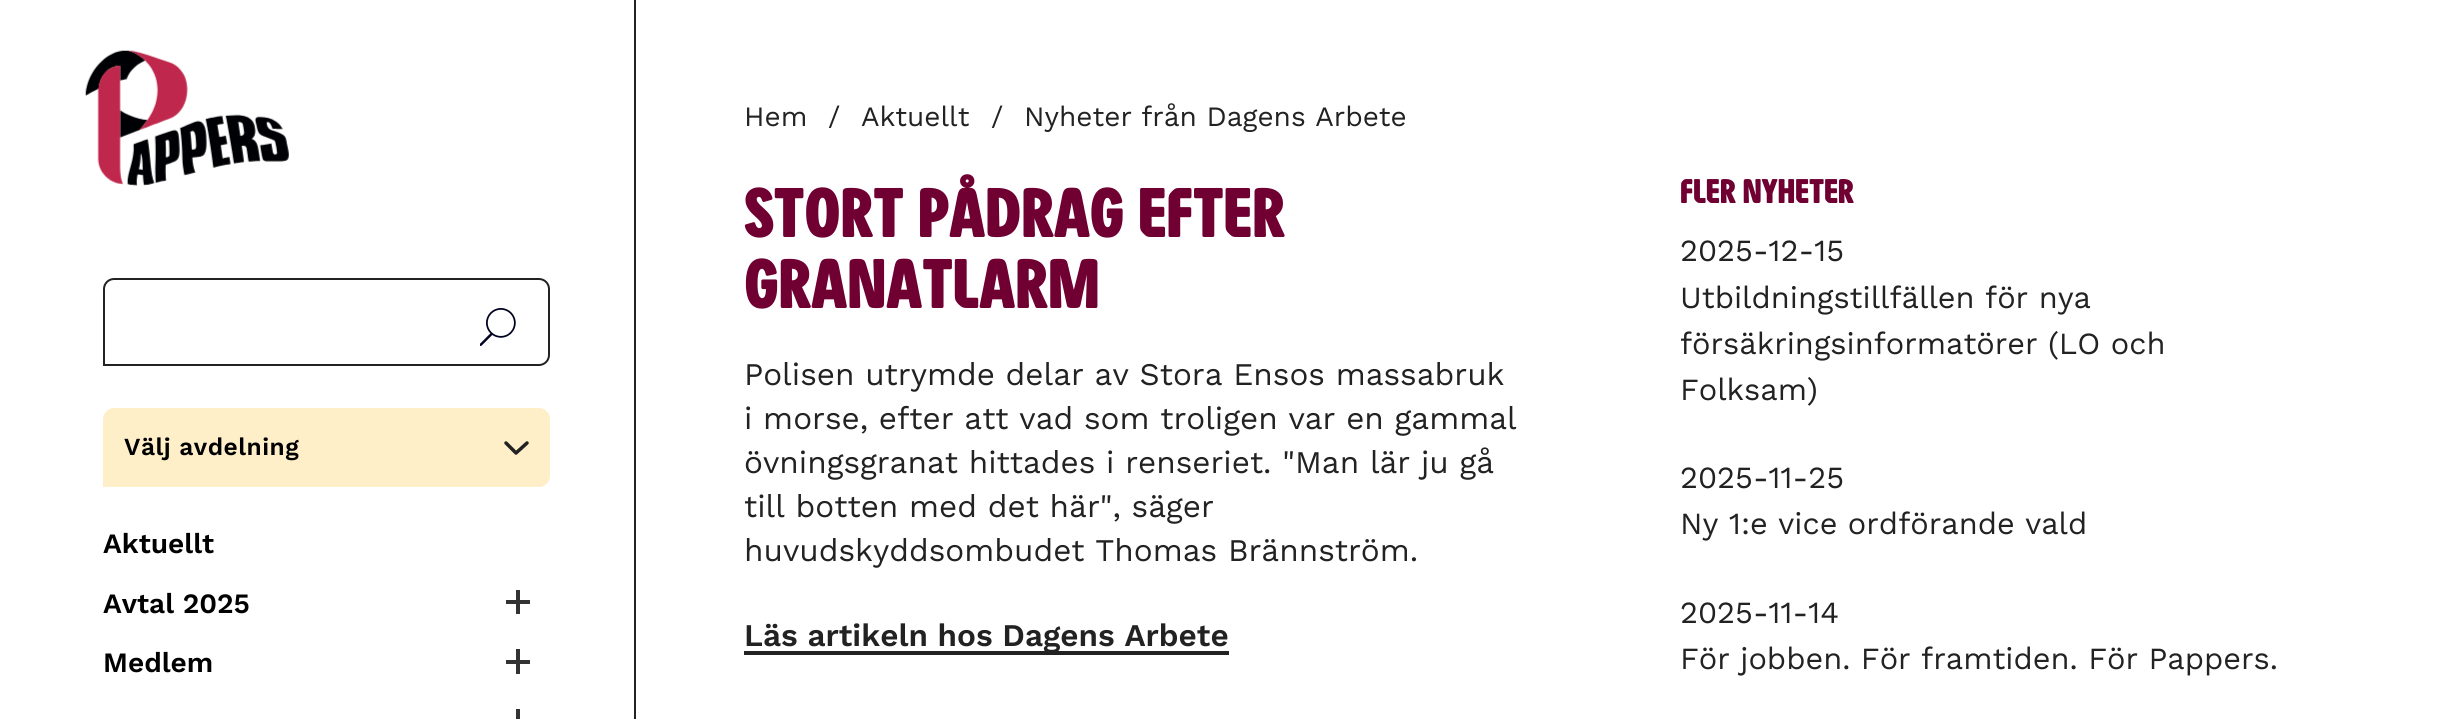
#include <cairo.h>
#include <math.h>
#include <stddef.h>

static cairo_t *c;
static void C(unsigned color){cairo_set_source_rgb(c, (color >> 16) / 255.0, (color >> 8 & 255) / 255.0, (color & 255) / 255.0);}
static void F(const char *family, double size, int italic, int bold){cairo_select_font_face(c, family, italic ? CAIRO_FONT_SLANT_ITALIC : CAIRO_FONT_SLANT_NORMAL,bold ? CAIRO_FONT_WEIGHT_BOLD : CAIRO_FONT_WEIGHT_NORMAL);cairo_set_font_size(c, size);}
static void T(double x, double y, const char *s){cairo_move_to(c, x, y);cairo_show_text(c, s);}
static void L(double x, double y, const char *s, double letter, double word){cairo_move_to(c, x, y);while (*s) {char ch[5] = {0};int n = 0;do ch[n++] = *s++; while ((*s & 0xC0) == 0x80);cairo_show_text(c, ch);cairo_rel_move_to(c, letter + word * (*ch == ' '), 0);}}
static void R(double x, double y, double w, double h){cairo_rectangle(c, x, y, w, h);cairo_fill(c);}
static void I(const char *path, double x, double y, double w, double h){cairo_surface_t *image = cairo_image_surface_create_from_png(path);cairo_save(c);cairo_set_source_surface(c, image, x, y);cairo_rectangle(c, x, y, w, h);cairo_fill(c);cairo_restore(c);cairo_surface_destroy(image);}
int main(void) {
cairo_surface_t *surface = cairo_image_surface_create(CAIRO_FORMAT_RGB24, 2438, 719);
c = cairo_create(surface);
cairo_font_options_t *options = cairo_font_options_create();
cairo_font_options_set_hint_metrics(options, CAIRO_HINT_METRICS_OFF);
cairo_font_options_set_hint_style(options, CAIRO_HINT_STYLE_NONE);
cairo_set_font_options(c, options);
cairo_set_miter_limit(c, 4);
C(0xffffff);
cairo_paint(c);
C(0x222222);
R(634,0,2,719);
I("1.png",85,50,204,136);
cairo_new_path(c);
cairo_move_to(c,114,279);
cairo_line_to(c,539,279);
cairo_curve_to(c,544.5,279,549,283.5,549,289);
cairo_line_to(c,549,355);
cairo_curve_to(c,549,360.5,544.5,365,539,365);
cairo_line_to(c,104,365);
cairo_line_to(c,104,289);
cairo_curve_to(c,104,283.5,108.5,279,114,279);
cairo_close_path(c);
cairo_stroke(c);
I("2.png",480,308,36,38);
C(0xffefc9);
cairo_new_path(c);
cairo_move_to(c,114,408);
cairo_line_to(c,539,408);
cairo_curve_to(c,545,408,550,413,550,419);
cairo_line_to(c,550,476);
cairo_curve_to(c,550,482,545,487,539,487);
cairo_line_to(c,103,487);
cairo_line_to(c,103,419);
cairo_curve_to(c,103,413,108,408,114,408);
cairo_close_path(c);
cairo_fill(c);
cairo_new_path(c);
cairo_move_to(c,506,443);
cairo_line_to(c,516,453);
cairo_line_to(c,527,443);
C(0x222222);
cairo_set_line_width(c,3.5);
cairo_set_line_cap(c,CAIRO_LINE_CAP_ROUND);
cairo_set_line_join(c,CAIRO_LINE_JOIN_ROUND);
cairo_stroke(c);
F("Work Sans SemiBold",24.5,0,0);
C(0x000000);
L(124,455,"Välj avdelning",.5,0);
F("Work Sans SemiBold",28,0,0);
T(103,553,"Aktuellt");
T(103,613,"Avtal 2025");
C(0x333333);
R(506,600,24,4);
R(516,590,4,24);
C(0x000000);
T(103,672,"Medlem");
C(0x333333);
R(506,660,24,4);
R(516,649,4,25);
R(516,709,4,10);
F("Work Sans",28,0,0);
C(0x222222);
T(744,126,"Hem");
T(828,126,"/");
T(861,126,"Aktuellt");
T(991,126,"/");
T(1024,126,"Nyheter från Dagens Arbete");
F("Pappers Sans",63,0,1);
C(0x700032);
L(744,237,"Stort pådrag efter",1.25,0);
L(744,308,"granatlarm",1.25,0);
F("Work Sans",31.5,0,0);
C(0x222222);
T(744,385,"Polisen utrymde delar av Stora Ensos massabruk");
T(744,429,"i morse, efter att vad som troligen var en gammal");
T(744,473,"övningsgranat hittades i renseriet. \"Man lär ju gå");
T(744,517,"till botten med det här\", säger");
T(744,561,"huvudskyddsombudet Thomas Brännström.");
R(744,651,485,4);
F("Work Sans SemiBold",31.5,0,0);
T(744,646,"Läs artikeln hos Dagens Arbete");
F("Pappers Sans",30.75,0,1);
C(0x700032);
L(1680,203,"Fler nyheter",.6,0);
F("Work Sans",30.75,0,0);
C(0x222222);
T(1680,261,"2025-12-15");
T(1680,308,"Utbildningstillfällen för nya");
T(1680,354,"försäkringsinformatörer (LO och");
T(1680,400,"Folksam)");
T(1680,488,"2025-11-25");
T(1680,534,"Ny 1:e vice ordförande vald");
T(1680,623,"2025-11-14");
T(1680,669,"För jobben. För framtiden. För Pappers.");
cairo_surface_write_to_png(surface, "o.png");
cairo_font_options_destroy(options);
cairo_destroy(c);
cairo_surface_destroy(surface);
return 0;
}
